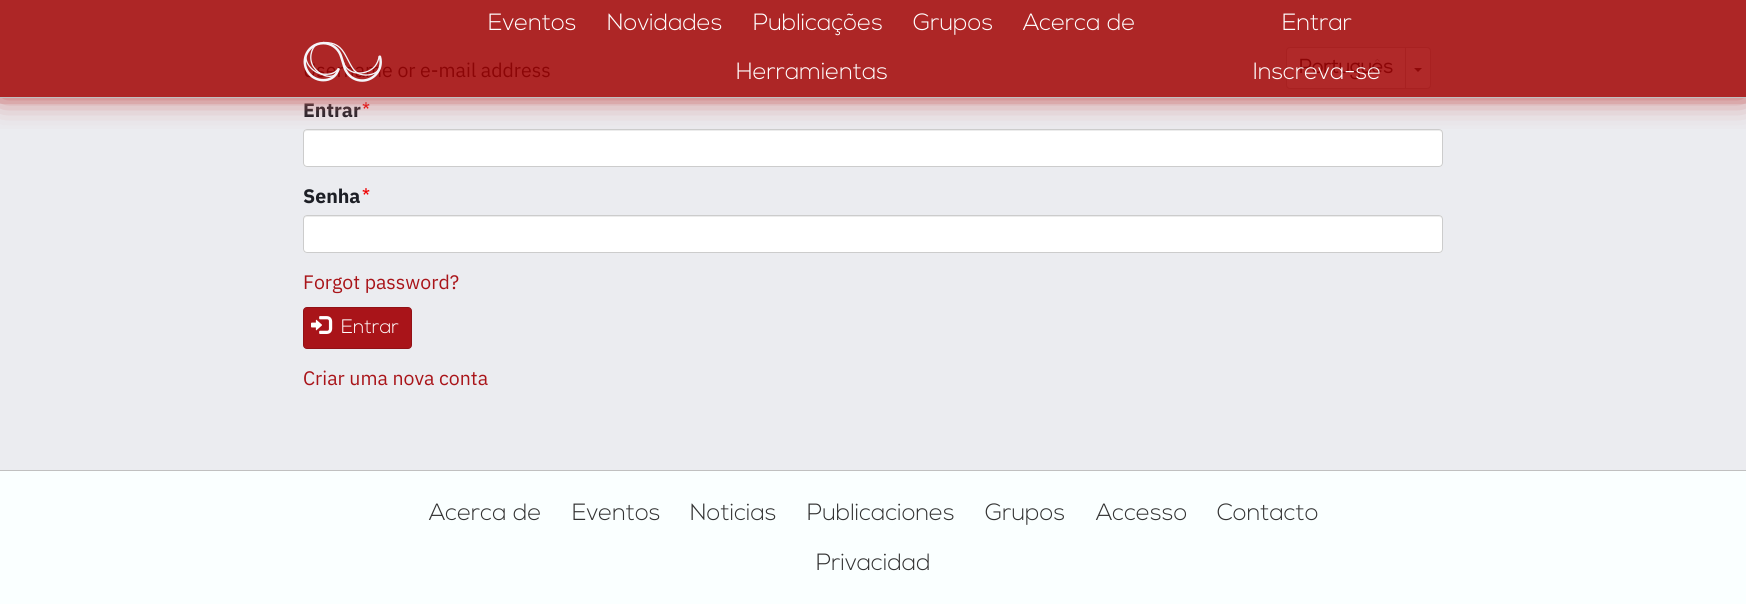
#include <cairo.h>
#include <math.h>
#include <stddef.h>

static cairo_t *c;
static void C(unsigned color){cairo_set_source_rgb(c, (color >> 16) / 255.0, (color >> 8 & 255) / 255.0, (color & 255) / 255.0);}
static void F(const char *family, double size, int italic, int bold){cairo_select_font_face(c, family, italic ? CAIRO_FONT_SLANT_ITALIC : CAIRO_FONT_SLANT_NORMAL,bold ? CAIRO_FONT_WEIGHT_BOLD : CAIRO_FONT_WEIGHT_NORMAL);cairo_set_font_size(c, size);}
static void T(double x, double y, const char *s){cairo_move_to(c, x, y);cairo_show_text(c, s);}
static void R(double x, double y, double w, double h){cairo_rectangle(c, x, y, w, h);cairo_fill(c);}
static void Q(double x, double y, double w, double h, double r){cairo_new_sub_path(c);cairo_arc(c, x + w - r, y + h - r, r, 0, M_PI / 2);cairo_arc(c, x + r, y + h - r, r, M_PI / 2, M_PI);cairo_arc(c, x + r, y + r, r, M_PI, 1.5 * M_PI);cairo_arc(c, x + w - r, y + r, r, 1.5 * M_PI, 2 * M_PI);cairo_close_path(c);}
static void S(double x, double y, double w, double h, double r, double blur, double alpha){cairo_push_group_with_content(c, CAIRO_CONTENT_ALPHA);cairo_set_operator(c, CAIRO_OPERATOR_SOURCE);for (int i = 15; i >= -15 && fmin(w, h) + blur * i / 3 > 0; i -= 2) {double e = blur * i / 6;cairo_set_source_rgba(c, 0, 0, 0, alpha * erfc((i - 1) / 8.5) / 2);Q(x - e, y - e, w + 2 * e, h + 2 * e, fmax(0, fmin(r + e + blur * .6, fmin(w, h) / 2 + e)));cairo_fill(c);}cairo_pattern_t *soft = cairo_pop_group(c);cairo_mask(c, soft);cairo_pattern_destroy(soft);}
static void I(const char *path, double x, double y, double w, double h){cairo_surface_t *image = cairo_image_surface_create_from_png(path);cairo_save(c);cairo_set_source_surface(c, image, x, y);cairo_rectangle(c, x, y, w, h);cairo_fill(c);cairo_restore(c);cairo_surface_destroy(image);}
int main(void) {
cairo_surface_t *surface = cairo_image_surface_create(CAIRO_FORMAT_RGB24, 1746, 604);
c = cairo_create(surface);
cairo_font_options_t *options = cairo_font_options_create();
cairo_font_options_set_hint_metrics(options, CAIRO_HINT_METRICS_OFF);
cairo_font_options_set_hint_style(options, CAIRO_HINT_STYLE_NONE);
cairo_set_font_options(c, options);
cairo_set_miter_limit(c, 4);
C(0xebecf0);
cairo_paint(c);
C(0xad2626);
R(0,0,1746,97);
F("IBM Plex Sans",19.5,0,1);
C(0x1d1f26);
T(303,117,"Entrar");
I("2.png",362,102,8,7);
cairo_set_source_rgba(c,0.784,0.392,0.392,0.2);
R(0,98,1746,6);
C(0xffffff);
Q(303,129,1140,38,4);
cairo_fill(c);
C(0xececec);
cairo_new_path(c);
cairo_move_to(c,307,131);
cairo_line_to(c,1439,131);
cairo_curve_to(c,1441,131,1442,132,1442,134);
cairo_line_to(c,1442,133);
cairo_curve_to(c,1442,131,1441,130,1439,130);
cairo_line_to(c,307,130);
cairo_curve_to(c,305,130,304,131,304,133);
cairo_line_to(c,304,134);
cairo_curve_to(c,304,132,305,131,307,131);
cairo_close_path(c);
cairo_fill(c);
Q(303.5,129.5,1139,37,3.5);
C(0xcccccc);
cairo_set_line_width(c,1);
cairo_stroke(c);
C(0xb02929);
cairo_new_path(c);
cairo_move_to(c,1290,47.5);
cairo_line_to(c,1405.5,47.5);
cairo_line_to(c,1405.5,88.5);
cairo_line_to(c,1290,88.5);
cairo_curve_to(c,1288,88.5,1286.5,87,1286.5,85);
cairo_line_to(c,1286.5,51);
cairo_curve_to(c,1286.5,49,1288,47.5,1290,47.5);
cairo_close_path(c);
cairo_fill_preserve(c);
C(0xa82121);
cairo_stroke(c);
C(0xb02929);
cairo_new_path(c);
cairo_move_to(c,1405.5,47.5);
cairo_line_to(c,1427,47.5);
cairo_curve_to(c,1429,47.5,1430.5,49,1430.5,51);
cairo_line_to(c,1430.5,85);
cairo_curve_to(c,1430.5,87,1429,88.5,1427,88.5);
cairo_line_to(c,1405.5,88.5);
cairo_close_path(c);
cairo_fill_preserve(c);
C(0xa82121);
cairo_stroke(c);
C(0x8f0808);
cairo_new_path(c);
cairo_move_to(c,1414,68);
cairo_line_to(c,1422,68);
cairo_line_to(c,1418,72);
cairo_close_path(c);
cairo_fill(c);
cairo_save(c);
cairo_rectangle(c,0,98,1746,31);
cairo_clip(c);
C(0xc86464);
S(0,0,1746,98,0,15,1);
cairo_restore(c);
C(0xc0c0c0);
R(0,97,1746,1);
F("IBM Plex Sans",19.5,0,0);
C(0x8c0506);
T(303,77,"Username or e-mail address");
I("1.png",303,41,79,41);
F("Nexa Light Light",23.5,0,0);
C(0xffffff);
T(488,30,"Eventos");
T(607,30,"Novidades");
T(753,30,"Publicações");
T(913,30,"Grupos");
T(1023,30,"Acerca de");
T(736,79,"Herramientas");
T(1282,30,"Entrar");
F("Nexa Light",19.5,0,1);
C(0x8c0506);
T(1299,73,"Português");
F("Nexa Light Light",23.5,0,0);
C(0xffffff);
T(1253,79,"Inscreva-se");
F("IBM Plex Sans",19.5,0,1);
C(0x1d1f26);
T(303,203,"Senha");
I("2.png",362,188,8,7);
C(0xffffff);
Q(303,215,1140,38,4);
cairo_fill(c);
C(0xececec);
cairo_new_path(c);
cairo_move_to(c,307,217);
cairo_line_to(c,1439,217);
cairo_curve_to(c,1441,217,1442,218,1442,220);
cairo_line_to(c,1442,219);
cairo_curve_to(c,1442,217,1441,216,1439,216);
cairo_line_to(c,307,216);
cairo_curve_to(c,305,216,304,217,304,219);
cairo_line_to(c,304,220);
cairo_curve_to(c,304,218,305,217,307,217);
cairo_close_path(c);
cairo_fill(c);
Q(303.5,215.5,1139,37,3.5);
C(0xcccccc);
cairo_stroke(c);
F("IBM Plex Sans",19.5,0,0);
C(0xa91419);
T(303,289,"Forgot password?");
Q(303.5,307.5,108,41,3.5);
cairo_fill_preserve(c);
C(0x921116);
cairo_stroke(c);
I("3.png",311,316,22,18);
F("Nexa Light Light",19.5,0,0);
C(0xffffff);
T(341,333,"Entrar");
F("IBM Plex Sans",19.5,0,0);
C(0xa91419);
T(303,385,"Criar uma nova conta");
C(0xfaffff);
R(0,471,1746,133);
C(0xc0c0c0);
R(0,470,1746,1);
F("Nexa Light Light",23.5,0,0);
C(0x333333);
T(429,520,"Acerca de");
T(572,520,"Eventos");
T(690,520,"Noticias");
T(807,520,"Publicaciones");
T(985,520,"Grupos");
T(1096,520,"Accesso");
T(1217,520,"Contacto");
T(816,570,"Privacidad");
cairo_surface_write_to_png(surface, "o.png");
cairo_font_options_destroy(options);
cairo_destroy(c);
cairo_surface_destroy(surface);
return 0;
}
